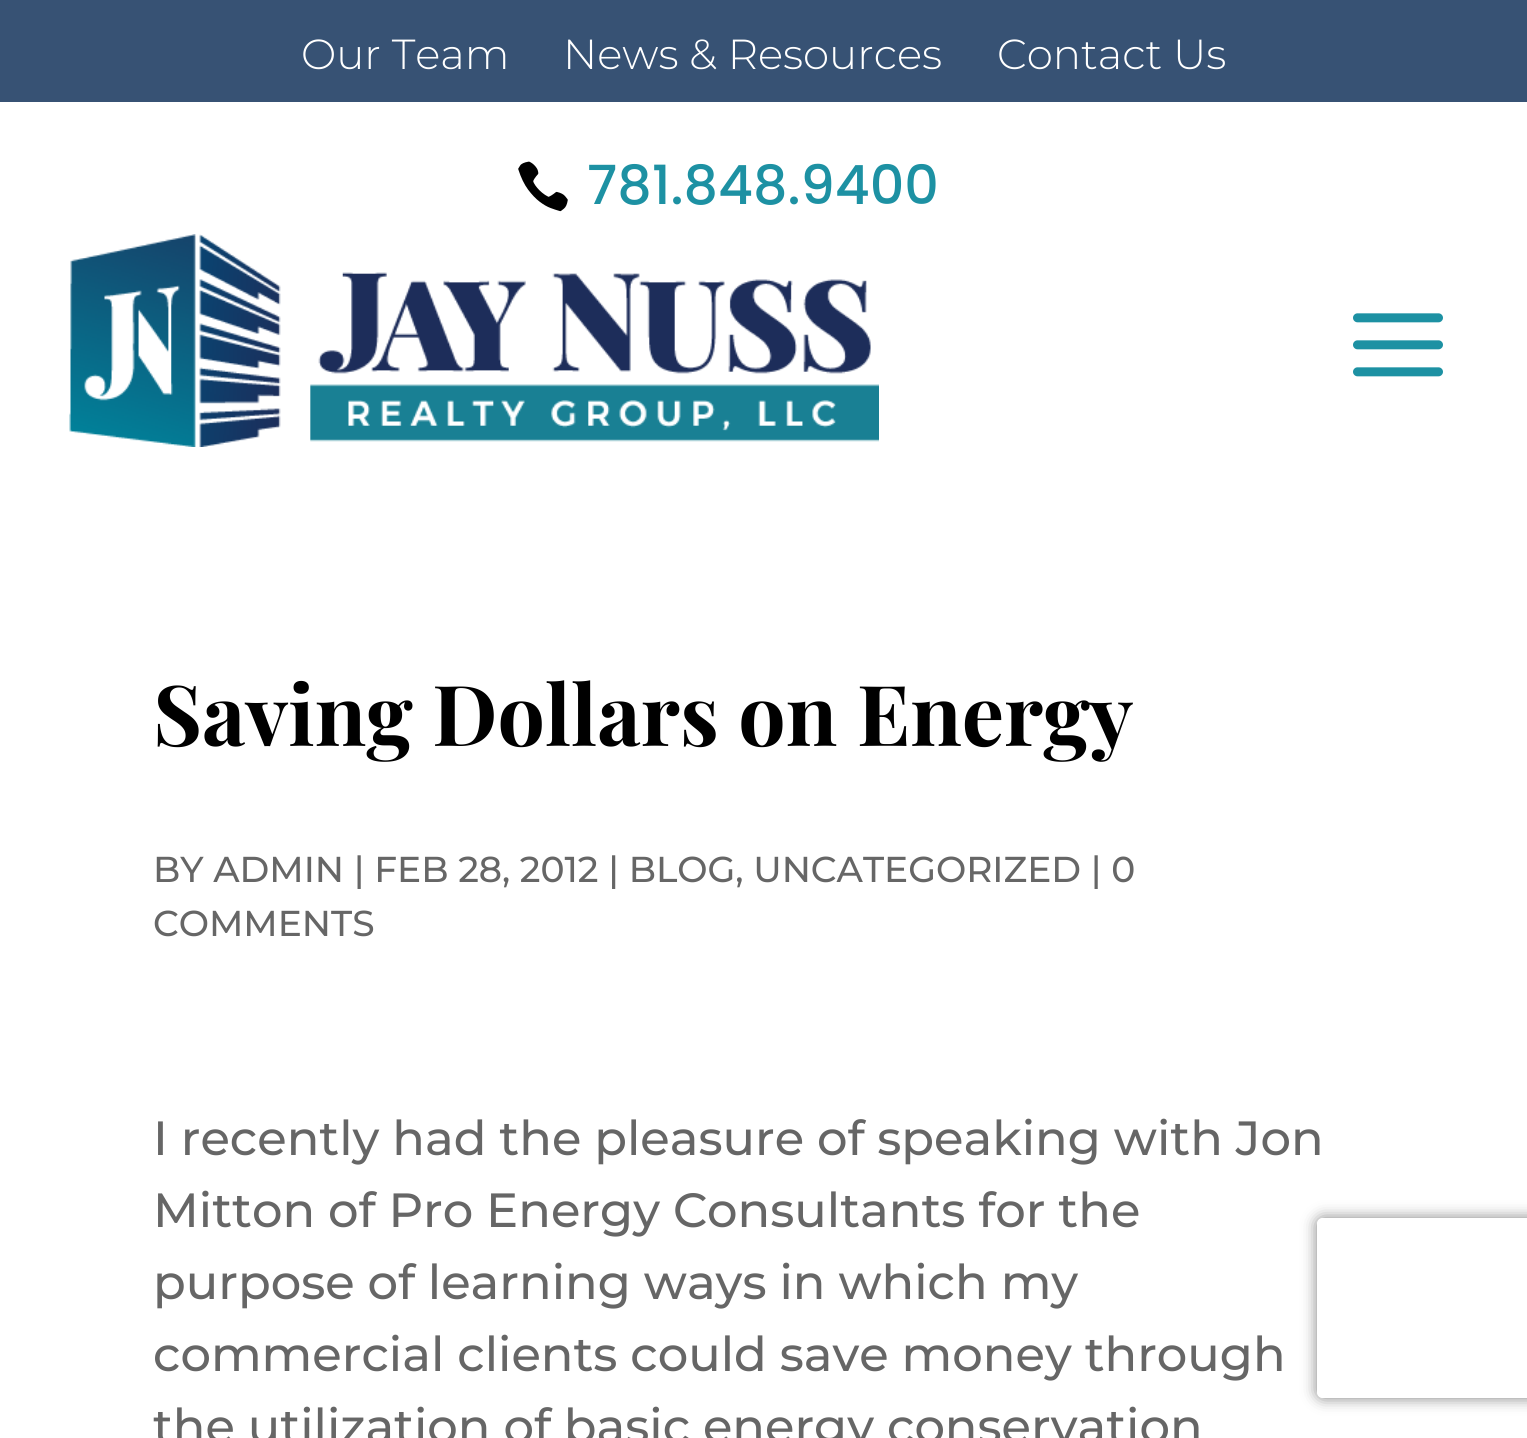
#include <cairo.h>
#include <math.h>
#include <stddef.h>

static cairo_t *c;
static void C(unsigned color){cairo_set_source_rgb(c, (color >> 16) / 255.0, (color >> 8 & 255) / 255.0, (color & 255) / 255.0);}
static void F(const char *family, double size, int italic, int bold){cairo_select_font_face(c, family, italic ? CAIRO_FONT_SLANT_ITALIC : CAIRO_FONT_SLANT_NORMAL,bold ? CAIRO_FONT_WEIGHT_BOLD : CAIRO_FONT_WEIGHT_NORMAL);cairo_set_font_size(c, size);}
static void T(double x, double y, const char *s){cairo_move_to(c, x, y);cairo_show_text(c, s);}
static void R(double x, double y, double w, double h){cairo_rectangle(c, x, y, w, h);cairo_fill(c);}
static void Q(double x, double y, double w, double h, double r){cairo_new_sub_path(c);cairo_arc(c, x + w - r, y + h - r, r, 0, M_PI / 2);cairo_arc(c, x + r, y + h - r, r, M_PI / 2, M_PI);cairo_arc(c, x + r, y + r, r, M_PI, 1.5 * M_PI);cairo_arc(c, x + w - r, y + r, r, 1.5 * M_PI, 2 * M_PI);cairo_close_path(c);}
static void S(double x, double y, double w, double h, double r, double blur, double alpha){cairo_push_group_with_content(c, CAIRO_CONTENT_ALPHA);cairo_set_operator(c, CAIRO_OPERATOR_SOURCE);for (int i = 15; i >= -15 && fmin(w, h) + blur * i / 3 > 0; i -= 2) {double e = blur * i / 6;cairo_set_source_rgba(c, 0, 0, 0, alpha * erfc((i - 1) / 8.5) / 2);Q(x - e, y - e, w + 2 * e, h + 2 * e, fmax(0, fmin(r + e + blur * .6, fmin(w, h) / 2 + e)));cairo_fill(c);}cairo_pattern_t *soft = cairo_pop_group(c);cairo_mask(c, soft);cairo_pattern_destroy(soft);}
static void I(const char *path, double x, double y, double w, double h){cairo_surface_t *image = cairo_image_surface_create_from_png(path);cairo_save(c);cairo_set_source_surface(c, image, x, y);cairo_rectangle(c, x, y, w, h);cairo_fill(c);cairo_restore(c);cairo_surface_destroy(image);}
int main(void) {
cairo_surface_t *surface = cairo_image_surface_create(CAIRO_FORMAT_RGB24, 1527, 1438);
c = cairo_create(surface);
cairo_font_options_t *options = cairo_font_options_create();
cairo_font_options_set_hint_metrics(options, CAIRO_HINT_METRICS_OFF);
cairo_font_options_set_hint_style(options, CAIRO_HINT_STYLE_NONE);
cairo_set_font_options(c, options);
cairo_set_miter_limit(c, 4);
C(0xffffff);
cairo_paint(c);
C(0x375274);
R(0,0,1527,102);
F("Montserrat Light",42,0,0);
C(0xffffff);
T(301,69,"Our Team");
T(563,69,"News & Resources");
T(997,69,"Contact Us");
I("1.png",518,161,50,51);
F("Poppins Medium",54,0,0);
C(0x1d91a3);
T(587,204,"781.848.9400");
I("2.png",69,234,810,213);
I("3.png",1353,313,90,64);
F("Playfair Display",84,0,1);
C(0x000000);
T(153,746,"Saving Dollars on Energy");
F("Montserrat Medium",36,0,0);
C(0x666666);
T(153,882,"BY ADMIN | FEB 28, 2012 | BLOG, UNCATEGORIZED | 0");
T(153,936,"COMMENTS");
F("Montserrat Medium",48,0,0);
T(153,1155,"I recently had the pleasure of speaking with Jon");
T(153,1227,"Mitton of Pro Energy Consultants for the");
T(153,1299,"purpose of learning ways in which my");
T(153,1371,"commercial clients could save money through");
T(153,1443,"the utilization of basic energy conservation");
cairo_save(c);
cairo_set_fill_rule(c,CAIRO_FILL_RULE_EVEN_ODD);
cairo_new_path(c);
cairo_move_to(c,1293,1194);
cairo_line_to(c,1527,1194);
cairo_line_to(c,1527,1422);
cairo_line_to(c,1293,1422);
cairo_close_path(c);
cairo_move_to(c,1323,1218);
cairo_line_to(c,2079,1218);
cairo_curve_to(c,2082.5,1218,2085,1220.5,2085,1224);
cairo_line_to(c,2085,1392);
cairo_curve_to(c,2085,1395.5,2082.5,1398,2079,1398);
cairo_line_to(c,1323,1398);
cairo_curve_to(c,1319.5,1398,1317,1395.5,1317,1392);
cairo_line_to(c,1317,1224);
cairo_curve_to(c,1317,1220.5,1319.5,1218,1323,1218);
cairo_close_path(c);
cairo_clip(c);
C(0x808080);
S(1317,1218,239,180,6,7.5,1);
cairo_restore(c);
cairo_surface_write_to_png(surface, "o.png");
cairo_font_options_destroy(options);
cairo_destroy(c);
cairo_surface_destroy(surface);
return 0;
}
